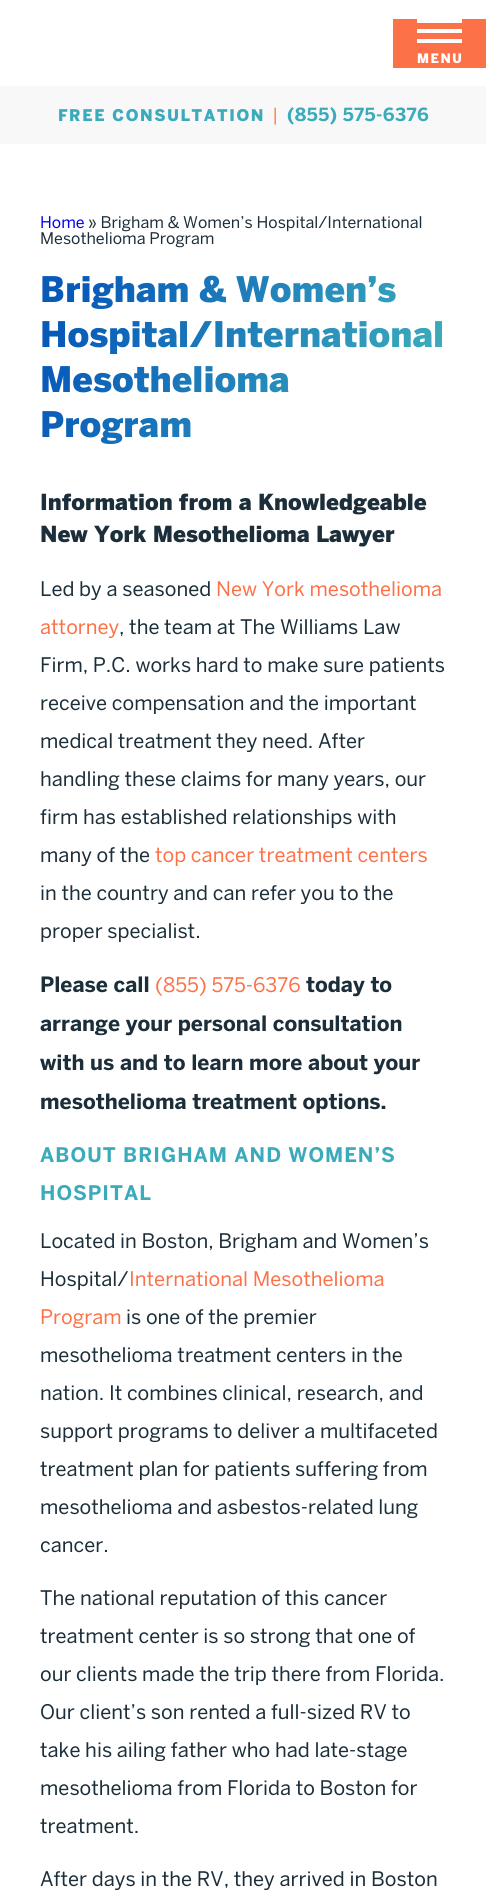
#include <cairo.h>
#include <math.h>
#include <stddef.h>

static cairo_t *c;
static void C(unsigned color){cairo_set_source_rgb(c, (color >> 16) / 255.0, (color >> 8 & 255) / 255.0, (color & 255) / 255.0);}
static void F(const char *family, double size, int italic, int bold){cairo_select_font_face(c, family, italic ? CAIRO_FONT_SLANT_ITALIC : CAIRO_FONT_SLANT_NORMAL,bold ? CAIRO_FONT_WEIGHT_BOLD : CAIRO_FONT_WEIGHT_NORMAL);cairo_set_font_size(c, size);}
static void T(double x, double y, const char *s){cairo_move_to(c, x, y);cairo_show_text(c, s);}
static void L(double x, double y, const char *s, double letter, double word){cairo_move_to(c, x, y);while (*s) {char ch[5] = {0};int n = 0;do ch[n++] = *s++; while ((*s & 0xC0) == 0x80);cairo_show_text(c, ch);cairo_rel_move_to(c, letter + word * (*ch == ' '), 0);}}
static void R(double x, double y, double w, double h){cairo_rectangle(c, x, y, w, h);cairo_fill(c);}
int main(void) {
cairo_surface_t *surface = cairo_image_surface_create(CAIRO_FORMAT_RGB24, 486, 1893);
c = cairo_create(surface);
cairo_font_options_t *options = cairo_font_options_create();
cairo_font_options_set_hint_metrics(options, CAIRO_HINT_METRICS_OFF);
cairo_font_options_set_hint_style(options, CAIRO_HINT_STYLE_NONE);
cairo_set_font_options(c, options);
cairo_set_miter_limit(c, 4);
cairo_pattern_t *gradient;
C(0xffffff);
cairo_paint(c);
C(0xfd7148);
R(393,19,93,49);
C(0xffffff);
R(417,39,45,4);
R(417,19,45,4);
R(417,29,45,4);
F("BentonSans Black",13,0,0);
L(417,63,"MENU",1.5,0);
C(0xf8f8f8);
R(0,86,486,58);
F("BentonSans Black",16,0,0);
C(0x3babbc);
L(58,121,"FREE CONSULTATION",1.6,0);
F("BentonSans",18,0,0);
C(0xfb8659);
L(272,121,"|",1.6,0);
F("BentonSans",18,0,1);
C(0x3babbc);
L(287,121,"(855) 575-6376",.5,0);
F("BentonSans",16,0,0);
C(0x0000ee);
T(40,228,"Home");
C(0x1b2e39);
T(88,228,"» Brigham & Women’s Hospital/International");
T(40,244,"Mesothelioma Program");
F("BentonSans Black",35,0,0);
gradient = cairo_pattern_create_linear(456,462,30,290);
cairo_pattern_add_color_stop_rgba(gradient,0,0.263,0.722,0.737,1);
cairo_pattern_add_color_stop_rgba(gradient,.9,0.031,0.353,0.725,1);
cairo_set_source(c,gradient);
cairo_pattern_destroy(gradient);
T(40,302,"Brigham & Women’s");
T(40,347,"Hospital/International");
T(40,392,"Mesothelioma");
T(40,437,"Program");
F("BentonSans Black",22,0,0);
C(0x1b2e39);
T(40,510,"Information from a Knowledgeable");
T(40,542,"New York Mesothelioma Lawyer");
F("BentonSans",20,0,0);
T(40,596,"Led by a seasoned");
C(0xfd7148);
T(216,596,"New York mesothelioma");
T(40,634,"attorney");
C(0x1b2e39);
T(119,634,", the team at The Williams Law");
T(40,672,"Firm, P.C. works hard to make sure patients");
T(40,710,"receive compensation and the important");
T(40,748,"medical treatment they need. After");
T(40,786,"handling these claims for many years, our");
T(40,824,"firm has established relationships with");
T(40,862,"many of the");
C(0xfd7148);
T(155,862,"top cancer treatment centers");
C(0x1b2e39);
T(40,900,"in the country and can refer you to the");
T(40,938,"proper specialist.");
F("BentonSans",21,0,1);
T(40,992,"Please call");
F("BentonSans",20,0,0);
C(0xfd7148);
T(155,992,"(855) 575-6376");
F("BentonSans",21,0,1);
C(0x1b2e39);
T(306,992,"today to");
T(40,1031,"arrange your personal consultation");
T(40,1070,"with us and to learn more about your");
T(40,1109,"mesothelioma treatment options.");
F("BentonSans",20,0,1);
C(0x3babbc);
L(40,1162,"ABOUT BRIGHAM AND WOMEN’S",1,0);
L(40,1200,"HOSPITAL",1,0);
F("BentonSans",20,0,0);
C(0x1b2e39);
T(40,1248,"Located in Boston, Brigham and Women’s");
T(40,1286,"Hospital/");
C(0xfd7148);
T(129,1286,"International Mesothelioma");
T(40,1324,"Program");
C(0x1b2e39);
T(126,1324,"is one of the premier");
T(40,1362,"mesothelioma treatment centers in the");
T(40,1400,"nation. It combines clinical, research, and");
T(40,1438,"support programs to deliver a multifaceted");
T(40,1476,"treatment plan for patients suffering from");
T(40,1514,"mesothelioma and asbestos-related lung");
T(40,1552,"cancer.");
T(40,1605,"The national reputation of this cancer");
T(40,1643,"treatment center is so strong that one of");
T(40,1681,"our clients made the trip there from Florida.");
T(40,1719,"Our client’s son rented a full-sized RV to");
T(40,1757,"take his ailing father who had late-stage");
T(40,1795,"mesothelioma from Florida to Boston for");
T(40,1833,"treatment.");
T(40,1886,"After days in the RV, they arrived in Boston");
cairo_surface_write_to_png(surface, "o.png");
cairo_font_options_destroy(options);
cairo_destroy(c);
cairo_surface_destroy(surface);
return 0;
}
